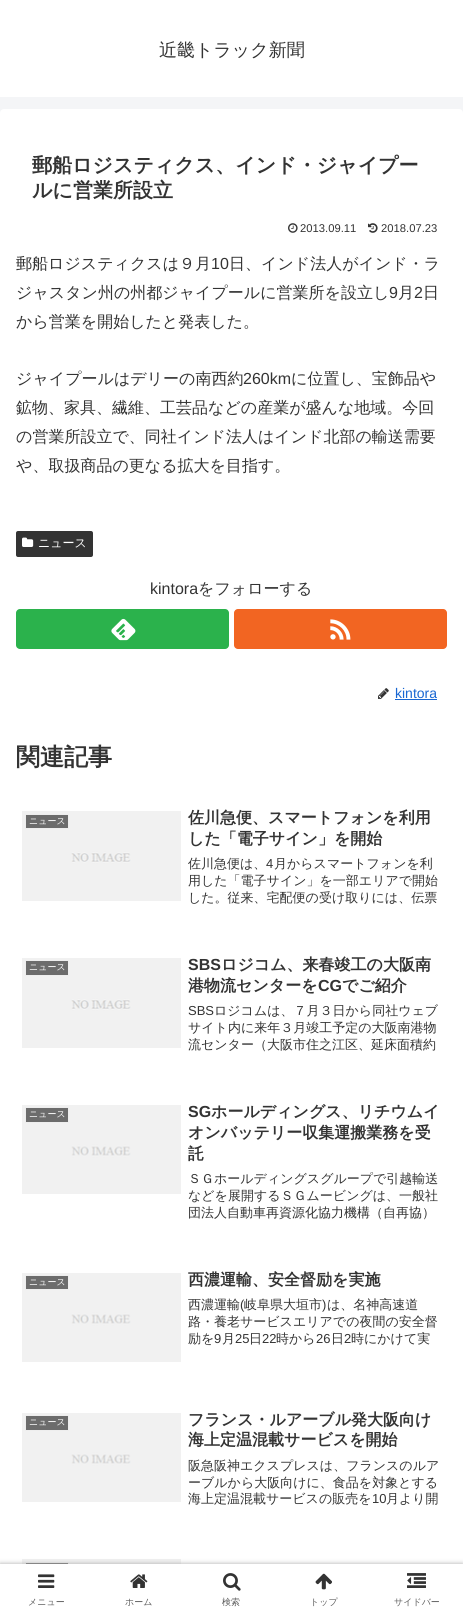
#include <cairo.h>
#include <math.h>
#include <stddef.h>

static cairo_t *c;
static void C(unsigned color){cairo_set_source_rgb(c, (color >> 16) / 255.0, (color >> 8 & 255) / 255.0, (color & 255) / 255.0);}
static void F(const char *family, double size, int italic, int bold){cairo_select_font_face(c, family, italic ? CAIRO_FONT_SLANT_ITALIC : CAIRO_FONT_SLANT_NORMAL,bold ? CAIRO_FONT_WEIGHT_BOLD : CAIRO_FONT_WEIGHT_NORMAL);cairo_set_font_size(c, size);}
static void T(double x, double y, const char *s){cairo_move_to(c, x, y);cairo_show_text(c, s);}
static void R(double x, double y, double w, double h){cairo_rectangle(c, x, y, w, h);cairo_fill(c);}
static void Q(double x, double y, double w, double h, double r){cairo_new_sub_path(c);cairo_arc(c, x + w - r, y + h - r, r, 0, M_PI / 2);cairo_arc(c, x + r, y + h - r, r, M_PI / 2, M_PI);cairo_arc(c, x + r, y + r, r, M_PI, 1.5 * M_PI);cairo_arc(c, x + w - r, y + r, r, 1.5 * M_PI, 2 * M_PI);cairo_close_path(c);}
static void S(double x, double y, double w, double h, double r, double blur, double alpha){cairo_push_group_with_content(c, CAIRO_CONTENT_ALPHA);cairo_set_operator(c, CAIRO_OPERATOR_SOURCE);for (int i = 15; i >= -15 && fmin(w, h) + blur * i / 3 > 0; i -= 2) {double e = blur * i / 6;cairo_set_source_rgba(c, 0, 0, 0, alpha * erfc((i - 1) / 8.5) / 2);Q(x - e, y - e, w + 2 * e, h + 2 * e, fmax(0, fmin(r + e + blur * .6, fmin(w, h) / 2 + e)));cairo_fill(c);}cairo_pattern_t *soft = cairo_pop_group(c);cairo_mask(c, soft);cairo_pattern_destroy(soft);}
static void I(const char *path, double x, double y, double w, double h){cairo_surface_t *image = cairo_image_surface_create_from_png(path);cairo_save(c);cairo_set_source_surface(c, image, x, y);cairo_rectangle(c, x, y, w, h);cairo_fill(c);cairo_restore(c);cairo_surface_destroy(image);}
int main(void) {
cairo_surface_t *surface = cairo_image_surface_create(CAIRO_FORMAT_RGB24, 463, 1614);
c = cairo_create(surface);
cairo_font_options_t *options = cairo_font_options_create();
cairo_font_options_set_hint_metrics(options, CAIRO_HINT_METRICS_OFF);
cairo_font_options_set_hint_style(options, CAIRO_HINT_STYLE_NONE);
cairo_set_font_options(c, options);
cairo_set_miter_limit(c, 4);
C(0xf4f5f7);
cairo_paint(c);
C(0xffffff);
R(0,0,463,97);
F("WenQuanYi Zen Hei Medium",18,0,0);
C(0x333333);
T(159,56,"近畿トラック新聞");
C(0xffffff);
Q(0,109,463,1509,4);
cairo_fill(c);
F("WenQuanYi Zen Hei",20,0,1);
C(0x333333);
T(32,172,"郵船ロジスティクス、インド・ジャイプー");
T(32,197,"ルに営業所設立");
I("1.png",288,223,10,10);
F("Liberation Sans",11.25,0,0);
T(300,232,"2013.09.11");
I("2.png",368,223,10,10);
T(381,232,"2018.07.23");
F("WenQuanYi Zen Hei Medium",16,0,0);
T(16,269,"郵船ロジスティクスは９月");
F("Liberation Sans",16,0,0);
T(211,269,"10");
F("WenQuanYi Zen Hei Medium",16,0,0);
T(229,269,"日、インド法人がインド・ラ");
T(16,298,"ジャスタン州の州都ジャイプールに営業所を設立し");
F("Liberation Sans",16,0,0);
T(389,298,"9");
F("WenQuanYi Zen Hei Medium",16,0,0);
T(398,298,"月");
F("Liberation Sans",16,0,0);
T(414,298,"2");
F("WenQuanYi Zen Hei Medium",16,0,0);
T(423,298,"日");
T(16,327,"から営業を開始したと発表した。");
T(16,384,"ジャイプールはデリーの南西約");
F("Liberation Sans",16,0,0);
T(243,384,"260km");
F("WenQuanYi Zen Hei Medium",16,0,0);
T(291,384,"に位置し、宝飾品や");
T(16,413,"鉱物、家具、繊維、工芸品などの産業が盛んな地域。今回");
T(16,442,"の営業所設立で、同社インド法人はインド北部の輸送需要");
T(16,471,"や、取扱商品の更なる拡大を目指す。");
Q(16,531,77,26,2);
cairo_fill(c);
I("3.png",22,537,12,10);
F("WenQuanYi Zen Hei Medium",12,0,0);
C(0xffffff);
T(38,547,"ニュース");
F("Liberation Sans",16,0,0);
C(0x333333);
T(150,594,"kintora");
F("WenQuanYi Zen Hei Medium",16,0,0);
T(198,594,"をフォローする");
C(0x2bb24c);
Q(16,609,213,40,4);
cairo_fill(c);
I("4.png",111,618,25,23);
C(0xf26522);
Q(234,609,213,40,4);
cairo_fill(c);
I("5.png",330,619,21,21);
I("6.png",378,688,11,11);
F("Liberation Sans",14,0,0);
C(0x1967d2);
T(395,698,"kintora");
R(395,699,42,1);
F("WenQuanYi Zen Hei",24,0,1);
C(0x333333);
T(16,765,"関連記事");
I("7.png",22,811,159,90);
C(0x6c6c6c);
cairo_rectangle(c,25.5,814.5,43,14);
cairo_fill_preserve(c);
C(0xeeeeee);
cairo_set_line_width(c,1);
cairo_stroke(c);
F("WenQuanYi Zen Hei Medium",9,0,0);
C(0xffffff);
T(29,824,"ニュース");
F("WenQuanYi Zen Hei",16,0,1);
C(0x333333);
T(188,823,"佐川急便、スマートフォンを利用");
T(188,844,"した「電子サイン」を開始");
F("WenQuanYi Zen Hei Medium",13,0,0);
T(188,868,"佐川急便は、");
F("Liberation Sans",13,0,0);
T(266,868,"4");
F("WenQuanYi Zen Hei Medium",13,0,0);
T(274,868,"月からスマートフォンを利");
T(188,885,"用した「電子サイン」を一部エリアで開始");
T(188,902,"した。従来、宅配便の受け取りには、伝票");
I("7.png",22,958,159,90);
C(0x6c6c6c);
cairo_rectangle(c,25.5,960.5,43,15);
cairo_fill_preserve(c);
C(0xeeeeee);
cairo_stroke(c);
F("WenQuanYi Zen Hei Medium",9,0,0);
C(0xffffff);
T(29,970,"ニュース");
F("Liberation Sans",16,0,1);
C(0x333333);
T(188,970,"SBS");
F("WenQuanYi Zen Hei",16,0,1);
T(221,970,"ロジコム、来春竣工の大阪南");
T(188,991,"港物流センターを");
F("Liberation Sans",16,0,1);
T(318,991,"CG");
F("WenQuanYi Zen Hei",16,0,1);
T(342,991,"でご紹介");
F("Liberation Sans",13,0,0);
T(188,1015,"SBS");
F("WenQuanYi Zen Hei Medium",13,0,0);
T(214,1015,"ロジコムは、７月３日から同社ウェブ");
T(188,1032,"サイト内に来年３月竣工予定の大阪南港物");
T(188,1049,"流センター（大阪市住之江区、延床面積約");
I("8.png",22,1105,159,89);
C(0x6c6c6c);
cairo_rectangle(c,25.5,1107.5,43,15);
cairo_fill_preserve(c);
C(0xeeeeee);
cairo_stroke(c);
F("WenQuanYi Zen Hei Medium",9,0,0);
C(0xffffff);
T(29,1117,"ニュース");
F("Liberation Sans",16,0,1);
C(0x333333);
T(188,1117,"SG");
F("WenQuanYi Zen Hei",16,0,1);
T(211,1117,"ホールディングス、リチウムイ");
T(188,1138,"オンバッテリー収集運搬業務を受");
T(188,1159,"託");
F("WenQuanYi Zen Hei Medium",13,0,0);
T(188,1183,"ＳＧホールディングスグループで引越輸送");
T(188,1200,"などを展開するＳＧムービングは、一般社");
T(188,1217,"団法人自動車再資源化協力機構（自再協）");
I("8.png",22,1273,159,89);
C(0x6c6c6c);
cairo_rectangle(c,25.5,1275.5,43,14);
cairo_fill_preserve(c);
C(0xeeeeee);
cairo_stroke(c);
F("WenQuanYi Zen Hei Medium",9,0,0);
C(0xffffff);
T(29,1285,"ニュース");
F("WenQuanYi Zen Hei",16,0,1);
C(0x333333);
T(188,1285,"西濃運輸、安全督励を実施");
F("WenQuanYi Zen Hei Medium",13,0,0);
T(188,1309,"西濃運輸");
F("Liberation Sans",13,0,0);
T(240,1309,"(");
F("WenQuanYi Zen Hei Medium",13,0,0);
T(244,1309,"岐阜県大垣市");
F("Liberation Sans",13,0,0);
T(322,1309,")");
F("WenQuanYi Zen Hei Medium",13,0,0);
T(327,1309,"は、名神高速道");
T(188,1326,"路・養老サービスエリアでの夜間の安全督");
T(188,1343,"励を");
F("Liberation Sans",13,0,0);
T(214,1343,"9");
F("WenQuanYi Zen Hei Medium",13,0,0);
T(222,1343,"月");
F("Liberation Sans",13,0,0);
T(235,1343,"25");
F("WenQuanYi Zen Hei Medium",13,0,0);
T(249,1343,"日");
F("Liberation Sans",13,0,0);
T(262,1343,"22");
F("WenQuanYi Zen Hei Medium",13,0,0);
T(276,1343,"時から");
F("Liberation Sans",13,0,0);
T(316,1343,"26");
F("WenQuanYi Zen Hei Medium",13,0,0);
T(331,1343,"日");
F("Liberation Sans",13,0,0);
T(344,1343,"2");
F("WenQuanYi Zen Hei Medium",13,0,0);
T(351,1343,"時にかけて実");
I("8.png",22,1413,159,89);
C(0x6c6c6c);
cairo_rectangle(c,25.5,1415.5,43,15);
cairo_fill_preserve(c);
C(0xeeeeee);
cairo_stroke(c);
F("WenQuanYi Zen Hei Medium",9,0,0);
C(0xffffff);
T(29,1425,"ニュース");
F("WenQuanYi Zen Hei",16,0,1);
C(0x333333);
T(188,1425,"フランス・ルアーブル発大阪向け");
T(188,1445,"海上定温混載サービスを開始");
F("WenQuanYi Zen Hei Medium",13,0,0);
T(188,1470,"阪急阪神エクスプレスは、フランスのルア");
T(188,1487,"ーブルから大阪向けに、食品を対象とする");
T(188,1503,"海上定温混載サービスの販売を");
F("Liberation Sans",13,0,0);
T(372,1503,"10");
F("WenQuanYi Zen Hei Medium",13,0,0);
T(386,1503,"月より開");
I("9.png",22,1559,159,5);
C(0x6c6c6c);
R(26,1563,42,1);
cairo_rectangle(c,25.5,1562.5,43,14);
C(0xeeeeee);
cairo_stroke(c);
C(0xa9a9a9);
S(0,1564,463,50,0,2.5,1);
C(0xffffff);
R(0,1564,463,50);
I("10.png",38,1574,17,14);
F("WenQuanYi Zen Hei Medium",9,0,0);
C(0x5c5c5c);
T(28,1605,"メニュー");
I("11.png",130,1574,18,14);
T(125,1605,"ホーム");
I("12.png",223,1573,18,18);
T(222,1605,"検索");
I("13.png",315,1573,17,17);
T(310,1605,"トップ");
I("14.png",407,1573,19,15);
T(394,1605,"サイドバー");
cairo_surface_write_to_png(surface, "o.png");
cairo_font_options_destroy(options);
cairo_destroy(c);
cairo_surface_destroy(surface);
return 0;
}
